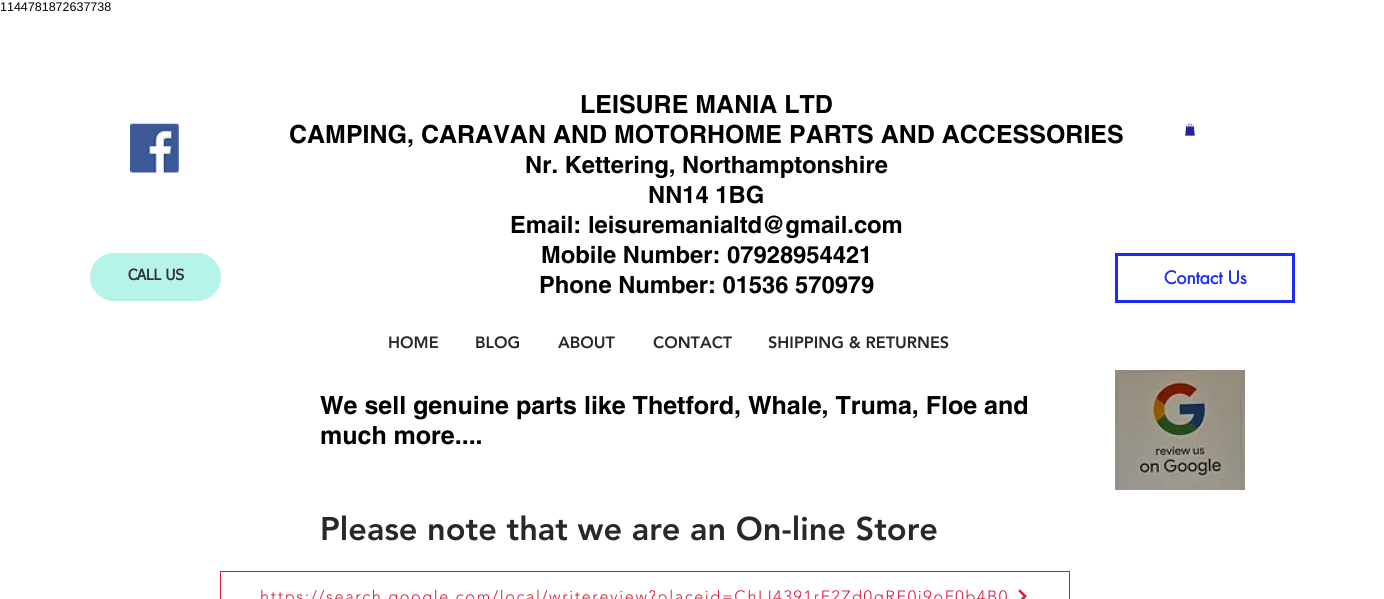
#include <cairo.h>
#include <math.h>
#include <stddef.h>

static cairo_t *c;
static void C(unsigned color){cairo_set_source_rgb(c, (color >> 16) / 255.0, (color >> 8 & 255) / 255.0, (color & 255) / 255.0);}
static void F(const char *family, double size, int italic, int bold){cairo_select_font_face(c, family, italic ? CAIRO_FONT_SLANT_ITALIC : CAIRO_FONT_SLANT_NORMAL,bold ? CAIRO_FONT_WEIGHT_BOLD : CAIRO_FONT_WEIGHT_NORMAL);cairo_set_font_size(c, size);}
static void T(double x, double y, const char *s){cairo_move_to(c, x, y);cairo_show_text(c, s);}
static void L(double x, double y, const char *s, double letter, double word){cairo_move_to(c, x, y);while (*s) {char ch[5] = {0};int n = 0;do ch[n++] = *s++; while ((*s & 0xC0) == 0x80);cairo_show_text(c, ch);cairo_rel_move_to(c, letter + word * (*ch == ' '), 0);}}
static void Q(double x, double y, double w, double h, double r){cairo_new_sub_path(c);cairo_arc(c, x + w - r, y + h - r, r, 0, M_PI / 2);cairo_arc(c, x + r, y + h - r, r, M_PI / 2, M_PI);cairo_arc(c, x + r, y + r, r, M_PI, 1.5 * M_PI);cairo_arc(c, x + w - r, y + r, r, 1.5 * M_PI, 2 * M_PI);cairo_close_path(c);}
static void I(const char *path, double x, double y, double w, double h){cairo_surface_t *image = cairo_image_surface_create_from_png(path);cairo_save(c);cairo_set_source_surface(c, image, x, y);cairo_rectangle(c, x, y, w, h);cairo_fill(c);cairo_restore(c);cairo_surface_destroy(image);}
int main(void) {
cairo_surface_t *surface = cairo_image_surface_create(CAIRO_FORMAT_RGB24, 1384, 599);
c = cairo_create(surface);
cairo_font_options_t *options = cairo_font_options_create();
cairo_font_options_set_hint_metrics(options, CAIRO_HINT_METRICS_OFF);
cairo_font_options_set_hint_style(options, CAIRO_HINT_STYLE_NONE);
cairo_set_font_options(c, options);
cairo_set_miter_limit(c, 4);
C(0xffffff);
cairo_paint(c);
F("Liberation Sans",12.5,0,0);
C(0x000000);
T(0,11,"1144781872637738");
I("1.png",130,123,49,50);
F("helvetica",25,0,1);
T(580,113,"LEISURE MANIA LTD");
T(289,143,"CAMPING, CARAVAN AND MOTORHOME PARTS AND ACCESSORIES");
F("helvetica",23.75,0,1);
T(525,173,"Nr. Kettering, Northamptonshire");
T(648,203,"NN14 1BG");
T(510,233,"Email: leisuremanialtd@gmail.com");
T(541,263,"Mobile Number: 07928954421");
T(539,293,"Phone Number: 01536 570979");
C(0xb6f3e8);
Q(90,253,131,48,24);
cairo_fill(c);
F("tahoma",15,0,1);
C(0x323232);
T(128,280,"CALL US");
cairo_rectangle(c,1116.5,254.5,177,47);
C(0x1d2cf3);
cairo_set_line_width(c,3);
cairo_stroke(c);
F("futura",17.5,0,1);
T(1164,284,"Contact Us");
F("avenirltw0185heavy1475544 Black",16.25,0,0);
C(0x282828);
T(388,348,"HOME");
T(475,348,"BLOG");
T(558,348,"ABOUT");
T(653,348,"CONTACT");
T(768,348,"SHIPPING & RETURNES");
F("helvetica",25,0,1);
C(0x000000);
T(320,414,"We sell genuine parts like Thetford, Whale, Truma, Floe and");
T(320,444,"much more....");
I("2.png",1115,370,130,120);
F("avenirltw0185heavy1475544 Black",32.5,0,0);
C(0x282828);
T(320,540,"Please note that we are an On-line Store");
cairo_rectangle(c,220.5,571.5,849,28);
C(0xdb163a);
cairo_set_line_width(c,1);
cairo_stroke(c);
F("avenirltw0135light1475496 Light",16.25,0,0);
L(260,602,"https://search.google.com/local/writereview?placeid=ChIJ4391rF2Zd0gRE0j9oF0b4B0",1.62,0);
I("3.png",1018,589,9,10);
I("4.png",1185,123,10,13);
cairo_surface_write_to_png(surface, "o.png");
cairo_font_options_destroy(options);
cairo_destroy(c);
cairo_surface_destroy(surface);
return 0;
}
